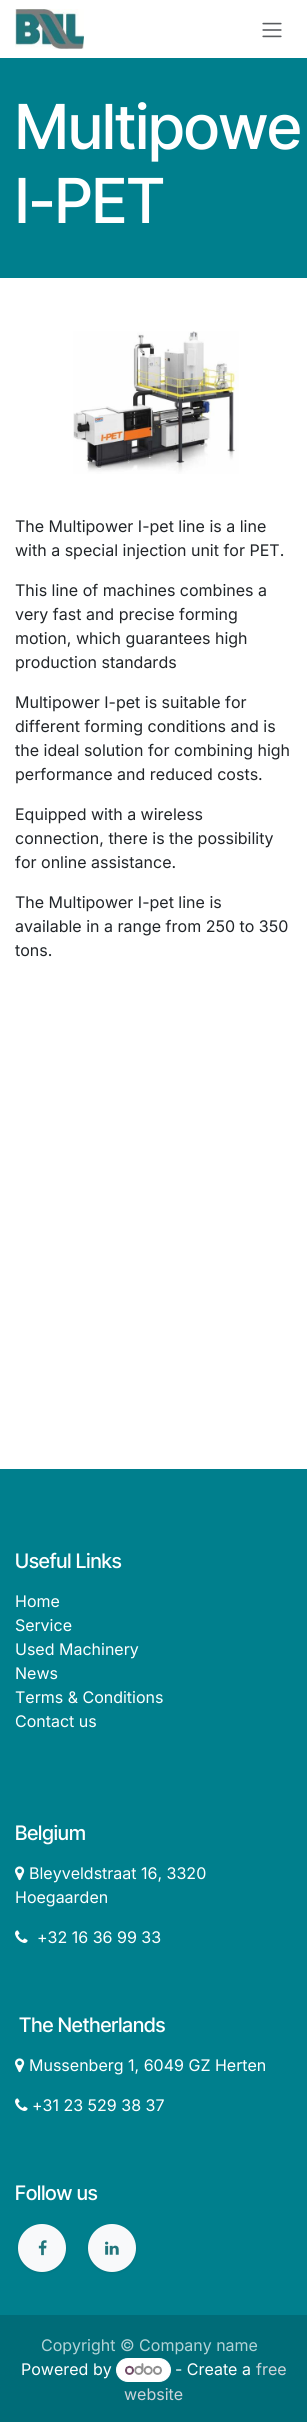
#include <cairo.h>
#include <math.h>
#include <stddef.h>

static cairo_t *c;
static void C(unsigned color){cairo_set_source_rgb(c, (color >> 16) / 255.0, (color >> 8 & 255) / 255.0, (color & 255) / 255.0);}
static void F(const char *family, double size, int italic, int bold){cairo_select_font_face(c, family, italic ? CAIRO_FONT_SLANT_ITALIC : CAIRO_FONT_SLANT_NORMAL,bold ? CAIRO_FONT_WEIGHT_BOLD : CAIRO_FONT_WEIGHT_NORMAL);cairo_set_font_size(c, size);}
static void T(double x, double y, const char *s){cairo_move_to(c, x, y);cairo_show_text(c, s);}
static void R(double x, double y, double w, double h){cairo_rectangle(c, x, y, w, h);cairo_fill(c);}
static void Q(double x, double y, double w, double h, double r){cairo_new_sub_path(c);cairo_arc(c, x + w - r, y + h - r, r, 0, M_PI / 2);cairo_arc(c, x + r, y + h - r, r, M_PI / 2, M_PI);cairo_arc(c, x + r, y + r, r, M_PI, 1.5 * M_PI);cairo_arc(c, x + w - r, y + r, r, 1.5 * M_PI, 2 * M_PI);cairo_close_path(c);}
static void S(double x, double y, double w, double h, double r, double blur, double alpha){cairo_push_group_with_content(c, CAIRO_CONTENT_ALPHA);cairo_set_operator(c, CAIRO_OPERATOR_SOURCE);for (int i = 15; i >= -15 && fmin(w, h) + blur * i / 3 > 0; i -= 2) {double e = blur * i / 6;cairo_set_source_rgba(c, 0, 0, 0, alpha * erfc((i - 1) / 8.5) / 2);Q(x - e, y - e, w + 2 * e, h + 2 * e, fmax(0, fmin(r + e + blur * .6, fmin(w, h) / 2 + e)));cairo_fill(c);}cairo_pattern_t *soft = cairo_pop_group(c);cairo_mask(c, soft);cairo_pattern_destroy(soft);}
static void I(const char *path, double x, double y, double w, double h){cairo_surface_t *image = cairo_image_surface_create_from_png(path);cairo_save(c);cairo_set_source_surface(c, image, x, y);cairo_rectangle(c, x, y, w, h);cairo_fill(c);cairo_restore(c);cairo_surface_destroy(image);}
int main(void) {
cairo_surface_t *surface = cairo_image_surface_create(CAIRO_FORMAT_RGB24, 307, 2422);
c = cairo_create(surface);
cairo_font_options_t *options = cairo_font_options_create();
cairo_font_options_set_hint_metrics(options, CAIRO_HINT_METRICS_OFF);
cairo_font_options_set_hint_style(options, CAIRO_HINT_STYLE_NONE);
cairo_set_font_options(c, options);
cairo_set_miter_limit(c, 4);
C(0xffffff);
cairo_paint(c);
I("1.png",15,9,69,40);
I("2.png",262,22,20,16);
C(0x007f8d);
R(0,58,307,220);
F("Inter Tight Medium",62,0,0);
C(0xffffff);
T(15,149,"Multipowe");
T(15,223,"I-PET");
I("3.png",73,331,166,143);
F("Inter",16,0,0);
C(0x212529);
T(15,532,"The Multipower I-pet line is a line");
T(15,556,"with a special injection unit for PET.");
T(15,596,"This line of machines combines a");
T(15,620,"very fast and precise forming");
T(15,644,"motion, which guarantees high");
T(15,668,"production standards");
T(15,708,"Multipower I-pet is suitable for");
T(15,732,"different forming conditions and is");
T(15,756,"the ideal solution for combining high");
T(15,780,"performance and reduced costs.");
T(15,820,"Equipped with a wireless");
T(15,844,"connection, there is the possibility");
T(15,868,"for online assistance.");
T(15,908,"The Multipower I-pet line is");
T(15,932,"available in a range from 250 to 350");
T(15,956,"tons.");
C(0x007f8d);
R(0,1469,307,846);
F("Inter Tight Medium",20,0,0);
C(0xffffff);
T(15,1568,"Useful Links");
F("Inter",16,0,0);
T(15,1607,"Home");
T(15,1631,"Service");
T(15,1655,"Used Machinery");
T(15,1679,"News");
T(15,1703,"Terms & Conditions");
T(15,1727,"Contact us");
F("Inter Tight Medium",20,0,0);
T(15,1840,"Belgium");
I("4.png",15,1866,10,15);
F("Inter",16,0,0);
T(29,1879,"Bleyveldstraat 16, 3320");
T(15,1903,"Hoegaarden");
I("5.png",15,1930,13,13);
T(37,1943,"+32 16 36 99 33");
F("Inter Tight Medium",20,0,0);
T(19,2032,"The Netherlands");
I("4.png",15,2058,10,15);
F("Inter",16,0,0);
T(29,2071,"Mussenberg 1, 6049 GZ Herten");
I("5.png",15,2098,13,13);
T(32,2111,"+31 23 529 38 37");
F("Inter Tight Medium",20,0,0);
T(15,2200,"Follow us");
C(0x000000);
S(18,2225,48,48,24,1.5,.1);
C(0xf8f9fa);
cairo_arc(c,42,2248,24,0,2 * M_PI);
cairo_fill(c);
I("6.png",38,2240,9,16);
C(0x000000);
S(88,2225,48,48,24,1.5,.1);
C(0xf8f9fa);
cairo_arc(c,112,2248,24,0,2 * M_PI);
cairo_fill(c);
I("7.png",105,2241,14,14);
C(0x006c78);
R(0,2315,307,107);
F("Inter",16,0,0);
C(0xb3d3d7);
T(41,2351,"Copyright © Company name");
C(0xffffff);
T(21,2375,"Powered by");
Q(116.5,2358.5,54,23,11.5);
cairo_fill_preserve(c);
cairo_set_line_width(c,1);
cairo_stroke(c);
I("8.png",125,2363,37,12);
T(175,2375,"- Create a");
C(0xced4da);
T(256,2375,"free");
T(124,2400,"website");
cairo_surface_write_to_png(surface, "o.png");
cairo_font_options_destroy(options);
cairo_destroy(c);
cairo_surface_destroy(surface);
return 0;
}
